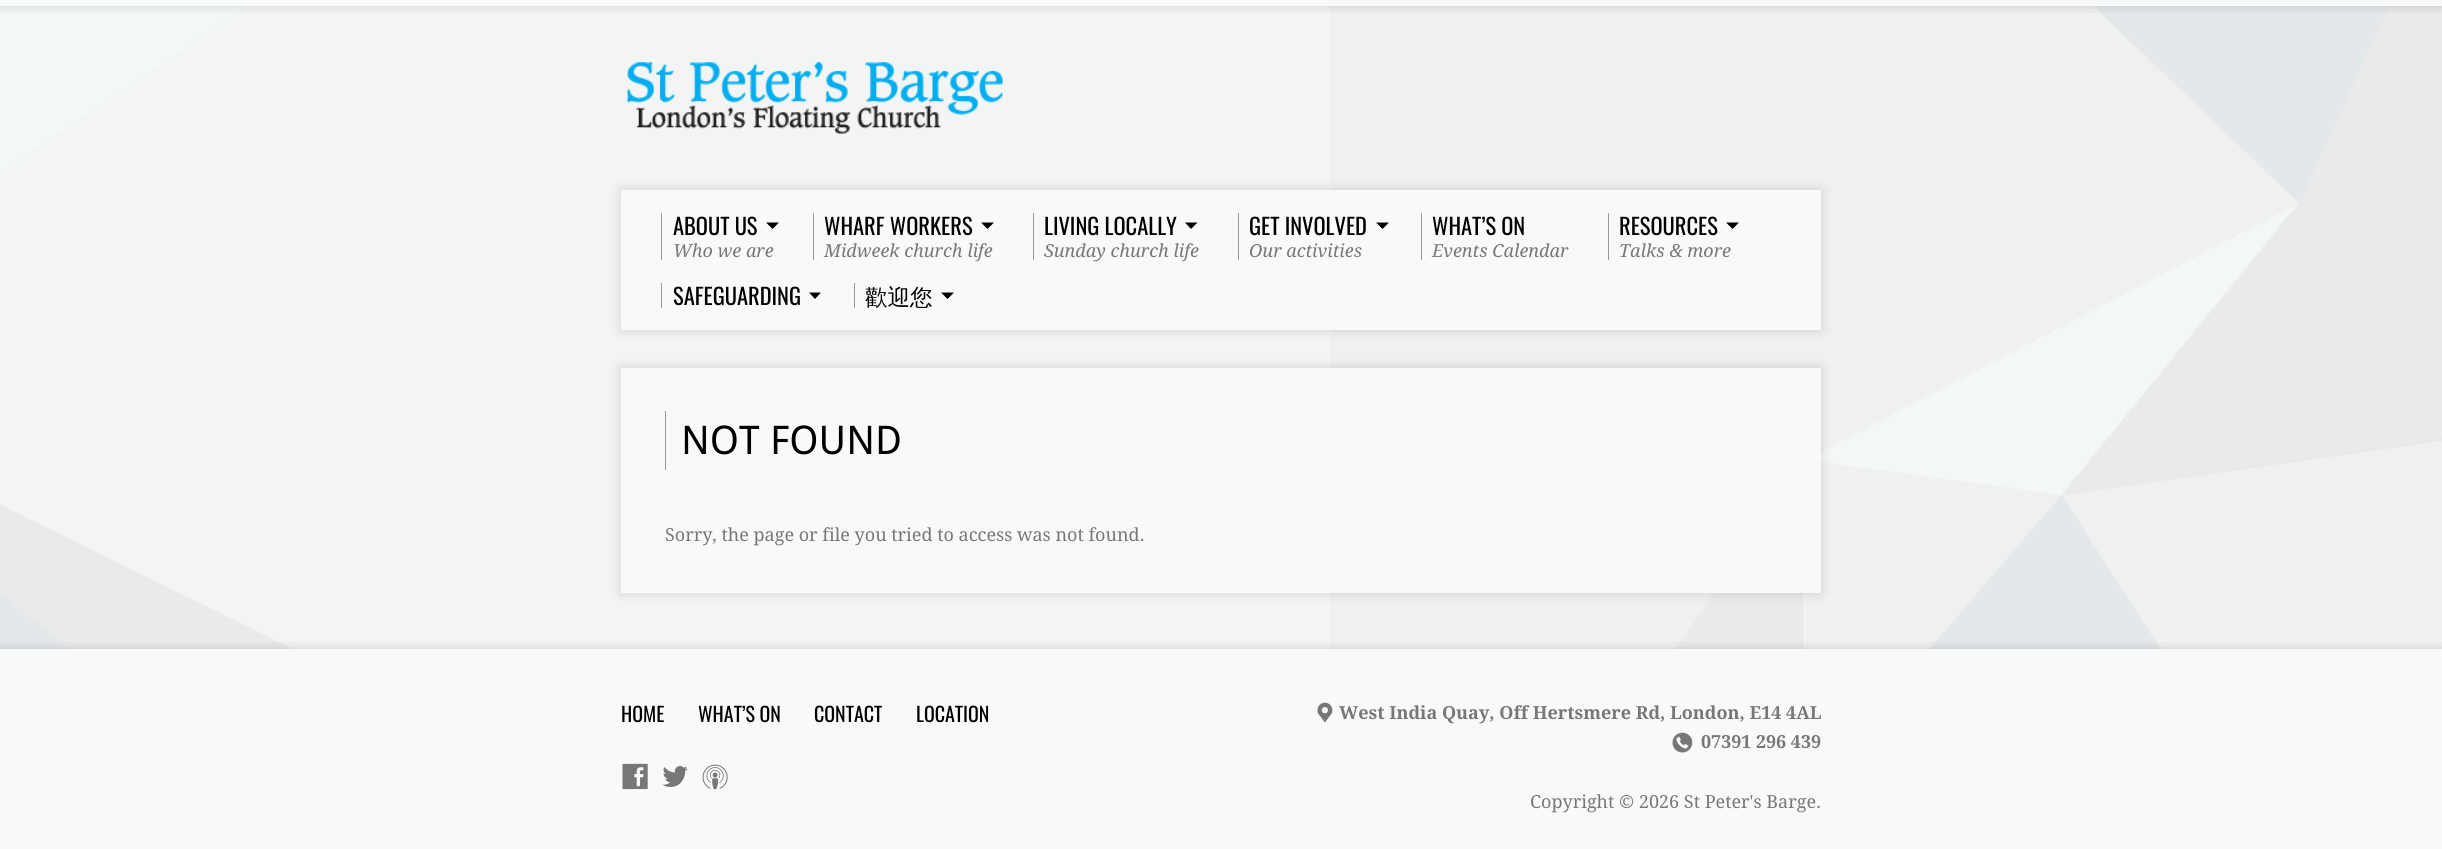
#include <cairo.h>
#include <math.h>
#include <stddef.h>

static cairo_t *c;
static void C(unsigned color){cairo_set_source_rgb(c, (color >> 16) / 255.0, (color >> 8 & 255) / 255.0, (color & 255) / 255.0);}
static void F(const char *family, double size, int italic, int bold){cairo_select_font_face(c, family, italic ? CAIRO_FONT_SLANT_ITALIC : CAIRO_FONT_SLANT_NORMAL,bold ? CAIRO_FONT_WEIGHT_BOLD : CAIRO_FONT_WEIGHT_NORMAL);cairo_set_font_size(c, size);}
static void T(double x, double y, const char *s){cairo_move_to(c, x, y);cairo_show_text(c, s);}
static void R(double x, double y, double w, double h){cairo_rectangle(c, x, y, w, h);cairo_fill(c);}
static void Q(double x, double y, double w, double h, double r){cairo_new_sub_path(c);cairo_arc(c, x + w - r, y + h - r, r, 0, M_PI / 2);cairo_arc(c, x + r, y + h - r, r, M_PI / 2, M_PI);cairo_arc(c, x + r, y + r, r, M_PI, 1.5 * M_PI);cairo_arc(c, x + w - r, y + r, r, 1.5 * M_PI, 2 * M_PI);cairo_close_path(c);}
static void S(double x, double y, double w, double h, double r, double blur, double alpha){cairo_push_group_with_content(c, CAIRO_CONTENT_ALPHA);cairo_set_operator(c, CAIRO_OPERATOR_SOURCE);for (int i = 15; i >= -15 && fmin(w, h) + blur * i / 3 > 0; i -= 2) {double e = blur * i / 6;cairo_set_source_rgba(c, 0, 0, 0, alpha * erfc((i - 1) / 8.5) / 2);Q(x - e, y - e, w + 2 * e, h + 2 * e, fmax(0, fmin(r + e + blur * .6, fmin(w, h) / 2 + e)));cairo_fill(c);}cairo_pattern_t *soft = cairo_pop_group(c);cairo_mask(c, soft);cairo_pattern_destroy(soft);}
static void I(const char *path, double x, double y, double w, double h){cairo_surface_t *image = cairo_image_surface_create_from_png(path);cairo_save(c);cairo_set_source_surface(c, image, x, y);cairo_rectangle(c, x, y, w, h);cairo_fill(c);cairo_restore(c);cairo_surface_destroy(image);}
int main(void) {
cairo_surface_t *surface = cairo_image_surface_create(CAIRO_FORMAT_RGB24, 2442, 849);
c = cairo_create(surface);
cairo_font_options_t *options = cairo_font_options_create();
cairo_font_options_set_hint_metrics(options, CAIRO_HINT_METRICS_OFF);
cairo_font_options_set_hint_style(options, CAIRO_HINT_STYLE_NONE);
cairo_set_font_options(c, options);
cairo_set_miter_limit(c, 4);
C(0xffffff);
cairo_paint(c);
I("1.png",0,0,2442,849);
cairo_save(c);
cairo_rectangle(c,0,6,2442,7);
cairo_clip(c);
C(0x000000);
S(0,-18,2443,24,0,6,.15);
cairo_restore(c);
cairo_set_source_rgba(c,0.98,0.98,0.98,0.94);
R(0,0,2442,6);
I("2.png",627,62,376,72);
cairo_save(c);
cairo_set_fill_rule(c,CAIRO_FILL_RULE_EVEN_ODD);
cairo_new_path(c);
cairo_move_to(c,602,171);
cairo_line_to(c,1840,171);
cairo_line_to(c,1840,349);
cairo_line_to(c,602,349);
cairo_close_path(c);
cairo_move_to(c,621,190);
cairo_line_to(c,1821,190);
cairo_line_to(c,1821,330);
cairo_line_to(c,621,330);
cairo_close_path(c);
cairo_clip(c);
C(0x000000);
S(621,190,1200,140,0,6,.15);
cairo_restore(c);
R(621,190,1200,140);
C(0x999999);
R(661,213,1,47);
F("Oswald",22.5,0,0);
C(0x000000);
T(673,235,"ABOUT US");
cairo_new_path(c);
cairo_move_to(c,766,222.5);
cairo_line_to(c,779,222.5);
cairo_line_to(c,772.5,229);
cairo_close_path(c);
cairo_fill(c);
F("Droid Serif",18,1,0);
C(0x777777);
T(673,257,"Who we are");
C(0x999999);
R(813,213,1,47);
F("Oswald",22.5,0,0);
C(0x000000);
T(824,235,"WHARF WORKERS");
cairo_new_path(c);
cairo_move_to(c,981,222.5);
cairo_line_to(c,994,222.5);
cairo_line_to(c,987.5,229);
cairo_close_path(c);
cairo_fill(c);
F("Droid Serif",18,1,0);
C(0x777777);
T(824,257,"Midweek church life");
C(0x999999);
R(1033,213,1,47);
F("Oswald",22.5,0,0);
C(0x000000);
T(1044,235,"LIVING LOCALLY");
cairo_new_path(c);
cairo_move_to(c,1185,222.5);
cairo_line_to(c,1197.5,222.5);
cairo_line_to(c,1191,229);
cairo_close_path(c);
cairo_fill(c);
F("Droid Serif",18,1,0);
C(0x777777);
T(1044,257,"Sunday church life");
C(0x999999);
R(1238,213,1,47);
F("Oswald",22.5,0,0);
C(0x000000);
T(1249,235,"GET INVOLVED");
cairo_new_path(c);
cairo_move_to(c,1376,222.5);
cairo_line_to(c,1389,222.5);
cairo_line_to(c,1382.5,229);
cairo_close_path(c);
cairo_fill(c);
F("Droid Serif",18,1,0);
C(0x777777);
T(1249,257,"Our activities");
C(0x999999);
R(1421,213,1,47);
F("Oswald",22.5,0,0);
C(0x000000);
T(1432,235,"WHAT’S ON");
F("Droid Serif",18,1,0);
C(0x777777);
T(1432,257,"Events Calendar");
C(0x999999);
R(1608,213,1,47);
F("Oswald",22.5,0,0);
C(0x000000);
T(1619,235,"RESOURCES");
cairo_new_path(c);
cairo_move_to(c,1726,222.5);
cairo_line_to(c,1739,222.5);
cairo_line_to(c,1732.5,229);
cairo_close_path(c);
cairo_fill(c);
F("Droid Serif",18,1,0);
C(0x777777);
T(1619,257,"Talks & more");
C(0x999999);
R(661,283,1,25);
F("Oswald",22.5,0,0);
C(0x000000);
T(673,305,"SAFEGUARDING");
cairo_new_path(c);
cairo_move_to(c,809,292.5);
cairo_line_to(c,821,292.5);
cairo_line_to(c,815,299);
cairo_close_path(c);
cairo_fill(c);
C(0x999999);
R(854,283,1,25);
F("WenQuanYi Zen Hei Medium",22.5,0,0);
C(0x000000);
T(865,305,"歡迎您");
cairo_new_path(c);
cairo_move_to(c,941,292.5);
cairo_line_to(c,954,292.5);
cairo_line_to(c,947.5,299);
cairo_close_path(c);
cairo_fill(c);
cairo_save(c);
cairo_set_fill_rule(c,CAIRO_FILL_RULE_EVEN_ODD);
cairo_new_path(c);
cairo_move_to(c,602,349);
cairo_line_to(c,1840,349);
cairo_line_to(c,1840,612);
cairo_line_to(c,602,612);
cairo_close_path(c);
cairo_move_to(c,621,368);
cairo_line_to(c,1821,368);
cairo_line_to(c,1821,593);
cairo_line_to(c,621,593);
cairo_close_path(c);
cairo_clip(c);
C(0x000000);
S(621,368,1200,225,0,6,.15);
cairo_restore(c);
cairo_set_source_rgba(c,0.98,0.98,0.98,0.94);
R(621,368,1200,225);
C(0x999999);
R(665,411,1,59);
F("Droid Sans",39.5,0,0);
C(0x000000);
T(681,454,"NOT FOUND");
F("Droid Serif",18,0,0);
C(0x777777);
T(665,541,"Sorry, the page or file you tried to access was not found.");
cairo_save(c);
cairo_rectangle(c,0,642,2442,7);
cairo_clip(c);
C(0x000000);
S(0,649,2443,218,0,6,.15);
cairo_restore(c);
cairo_set_source_rgba(c,0.98,0.98,0.98,0.94);
R(0,649,2442,200);
F("Oswald",20,0,0);
C(0x000000);
T(621,722,"HOME");
T(698,722,"WHAT’S ON");
T(814,722,"CONTACT");
T(916,722,"LOCATION");
I("3.png",622,763,26,27);
I("4.png",662,766,26,21);
I("5.png",702,764,26,26);
I("6.png",1317,702,16,21);
F("Droid Serif",18,0,1);
C(0x777777);
T(1339,719,"West India Quay, Off Hertsmere Rd, London, E14 4AL");
I("7.png",1672,732,21,21);
T(1701,748,"07391 296 439");
F("Droid Serif",18,0,0);
T(1530,808,"Copyright © 2026 St Peter's Barge.");
cairo_surface_write_to_png(surface, "o.png");
cairo_font_options_destroy(options);
cairo_destroy(c);
cairo_surface_destroy(surface);
return 0;
}
